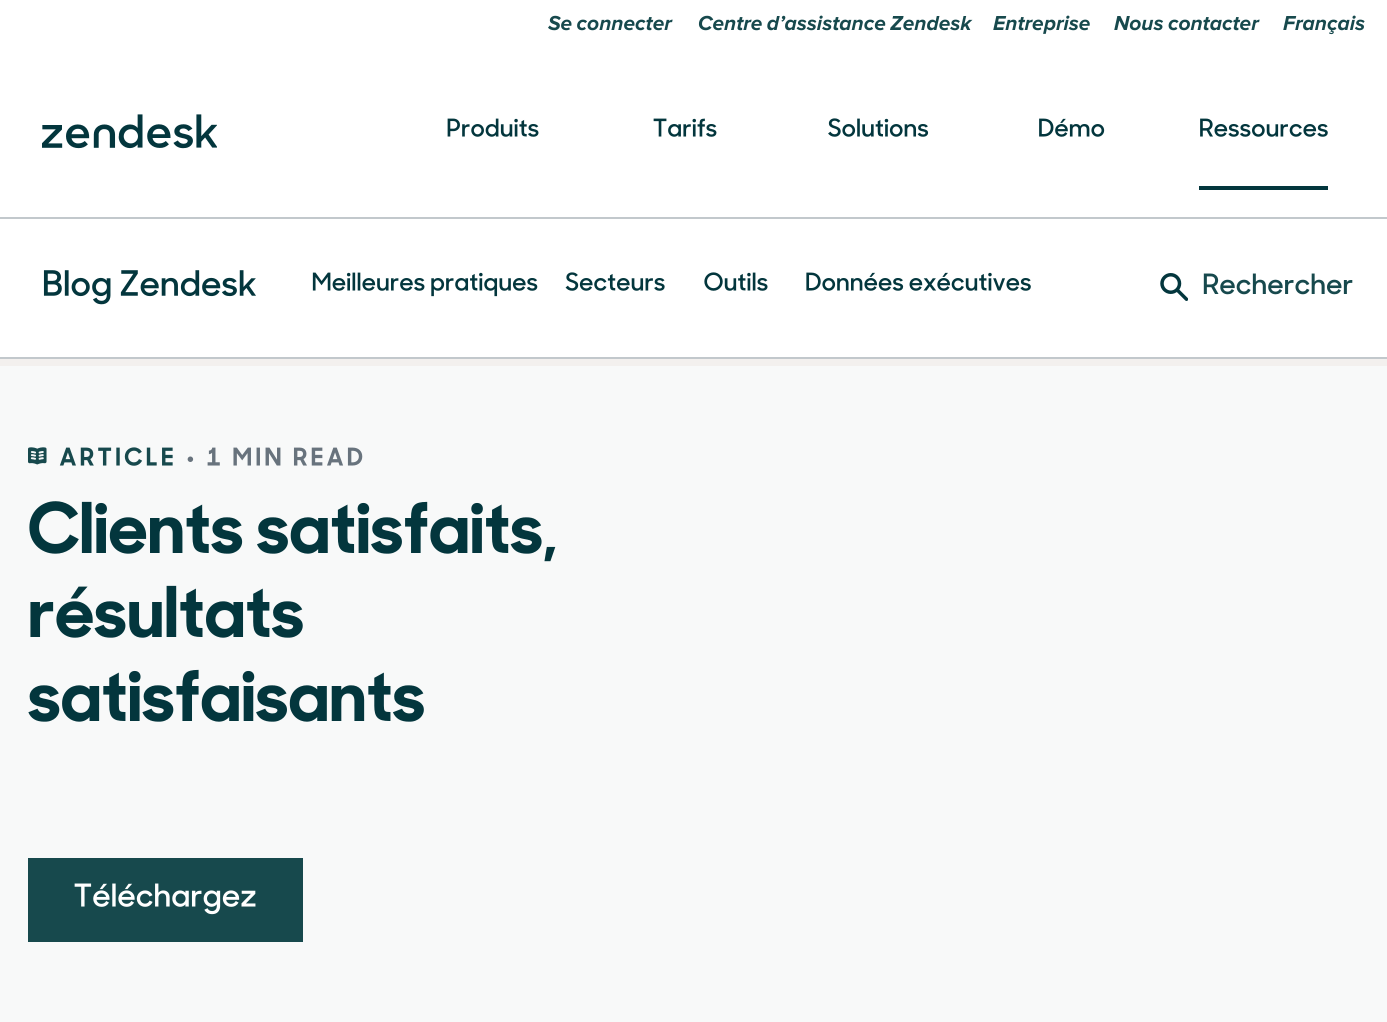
#include <cairo.h>
#include <math.h>
#include <stddef.h>

static cairo_t *c;
static void C(unsigned color){cairo_set_source_rgb(c, (color >> 16) / 255.0, (color >> 8 & 255) / 255.0, (color & 255) / 255.0);}
static void F(const char *family, double size, int italic, int bold){cairo_select_font_face(c, family, italic ? CAIRO_FONT_SLANT_ITALIC : CAIRO_FONT_SLANT_NORMAL,bold ? CAIRO_FONT_WEIGHT_BOLD : CAIRO_FONT_WEIGHT_NORMAL);cairo_set_font_size(c, size);}
static void T(double x, double y, const char *s){cairo_move_to(c, x, y);cairo_show_text(c, s);}
static void L(double x, double y, const char *s, double letter, double word){cairo_move_to(c, x, y);while (*s) {char ch[5] = {0};int n = 0;do ch[n++] = *s++; while ((*s & 0xC0) == 0x80);cairo_show_text(c, ch);cairo_rel_move_to(c, letter + word * (*ch == ' '), 0);}}
static void R(double x, double y, double w, double h){cairo_rectangle(c, x, y, w, h);cairo_fill(c);}
static void I(const char *path, double x, double y, double w, double h){cairo_surface_t *image = cairo_image_surface_create_from_png(path);cairo_save(c);cairo_set_source_surface(c, image, x, y);cairo_rectangle(c, x, y, w, h);cairo_fill(c);cairo_restore(c);cairo_surface_destroy(image);}
int main(void) {
cairo_surface_t *surface = cairo_image_surface_create(CAIRO_FORMAT_RGB24, 1387, 1022);
c = cairo_create(surface);
cairo_font_options_t *options = cairo_font_options_create();
cairo_font_options_set_hint_metrics(options, CAIRO_HINT_METRICS_OFF);
cairo_font_options_set_hint_style(options, CAIRO_HINT_STYLE_NONE);
cairo_set_font_options(c, options);
cairo_set_miter_limit(c, 4);
C(0xf8f9f9);
cairo_paint(c);
C(0xffffff);
R(0,0,1387,217);
F("Proxima Nova",21,1,1);
C(0x17494d);
L(548,30,"Se connecter",0,-1);
L(698,30,"Centre d’assistance Zendesk",0,-1);
T(993,30,"Entreprise");
L(1114,30,"Nous contacter",0,-1);
T(1283,30,"Français");
I("1.png",42,114,175,35);
I("2.png",447,118,92,19);
I("3.png",653,118,64,19);
I("4.png",828,118,101,19);
I("5.png",1039,118,66,19);
I("6.png",1200,118,128,19);
C(0x03363d);
R(1199,186,129,4);
C(0xffffff);
R(0,219,1387,138);
C(0xc2c8cc);
R(0,217,1387,2);
R(0,357,1387,2);
I("7.png",43,270,213,35);
I("8.png",312,272,226,25);
I("9.png",565,272,100,19);
I("10.png",704,272,64,19);
I("11.png",806,272,225,19);
I("12.png",1160,273,28,28);
I("13.png",1203,273,150,22);
C(0xf3f0ee);
R(0,359,1387,7);
I("14.png",28,447,19,18);
I("15.png",59,447,114,19);
I("16.png",187,456,7,6);
I("17.png",207,447,156,19);
I("18.png",29,501,527,61);
I("19.png",30,585,273,53);
I("20.png",28,669,396,53);
C(0x17494d);
R(28,858,275,84);
I("21.png",74,883,182,32);
cairo_surface_write_to_png(surface, "o.png");
cairo_font_options_destroy(options);
cairo_destroy(c);
cairo_surface_destroy(surface);
return 0;
}
